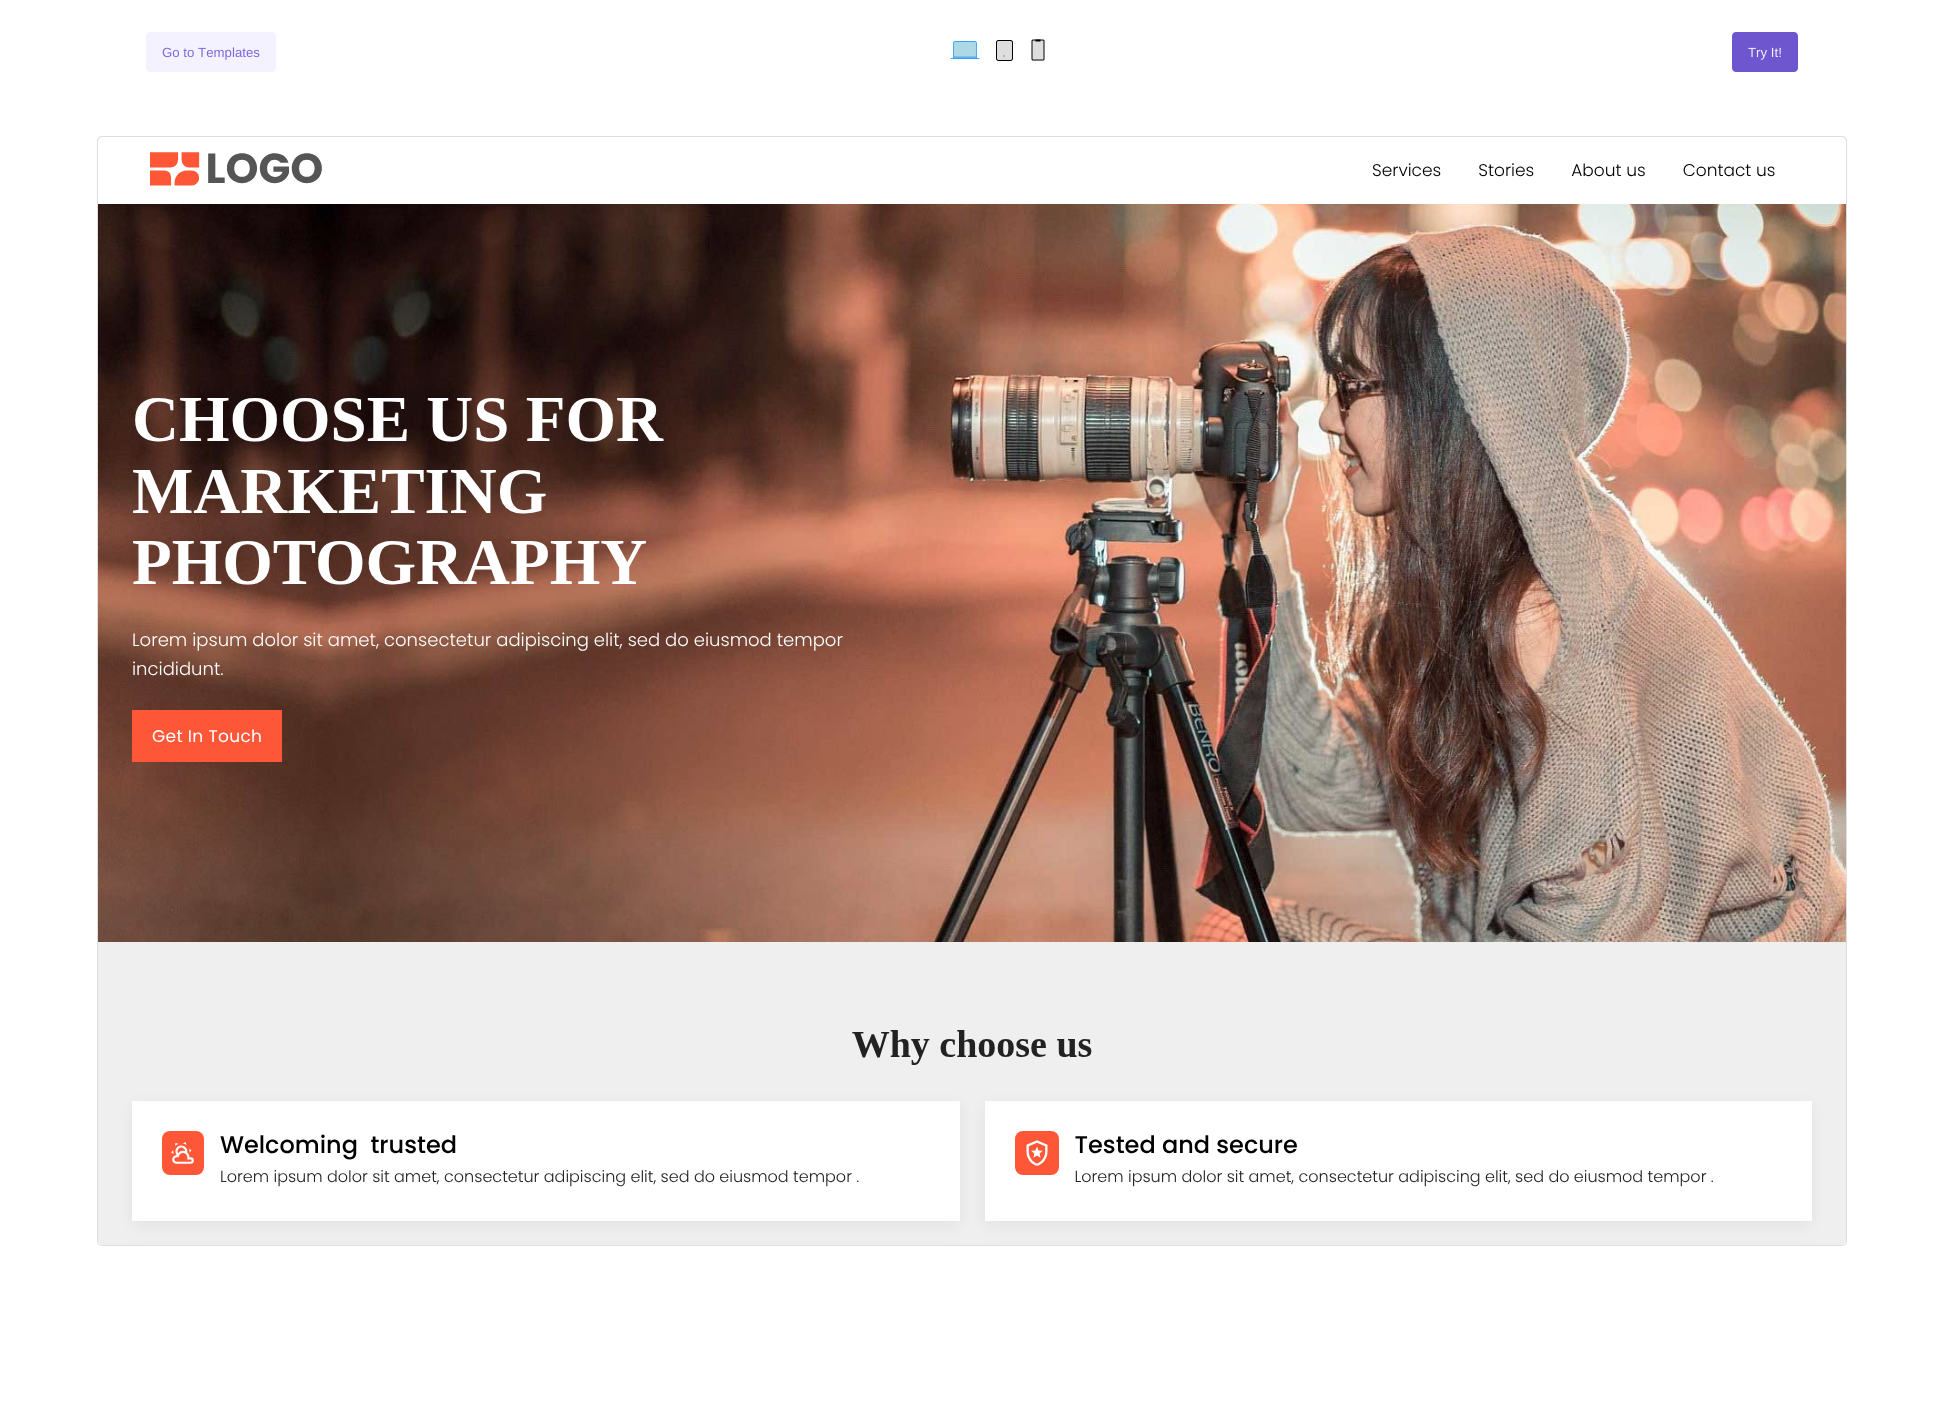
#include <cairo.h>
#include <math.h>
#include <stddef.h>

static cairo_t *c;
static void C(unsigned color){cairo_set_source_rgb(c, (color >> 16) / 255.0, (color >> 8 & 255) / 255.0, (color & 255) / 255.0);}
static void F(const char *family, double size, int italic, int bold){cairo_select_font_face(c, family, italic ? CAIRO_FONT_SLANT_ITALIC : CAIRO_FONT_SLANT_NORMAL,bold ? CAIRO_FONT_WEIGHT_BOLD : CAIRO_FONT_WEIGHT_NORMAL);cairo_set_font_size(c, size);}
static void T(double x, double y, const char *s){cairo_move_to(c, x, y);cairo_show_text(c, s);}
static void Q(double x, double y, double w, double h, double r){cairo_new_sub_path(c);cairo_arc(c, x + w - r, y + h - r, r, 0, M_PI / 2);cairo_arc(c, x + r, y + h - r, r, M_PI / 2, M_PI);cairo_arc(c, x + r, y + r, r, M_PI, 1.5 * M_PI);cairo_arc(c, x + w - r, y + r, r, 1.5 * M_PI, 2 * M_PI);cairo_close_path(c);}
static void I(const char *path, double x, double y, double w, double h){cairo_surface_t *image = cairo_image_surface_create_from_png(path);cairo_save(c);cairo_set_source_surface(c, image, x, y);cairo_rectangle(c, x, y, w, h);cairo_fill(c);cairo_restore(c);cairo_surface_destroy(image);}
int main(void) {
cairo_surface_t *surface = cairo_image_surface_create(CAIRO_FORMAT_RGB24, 1944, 1423);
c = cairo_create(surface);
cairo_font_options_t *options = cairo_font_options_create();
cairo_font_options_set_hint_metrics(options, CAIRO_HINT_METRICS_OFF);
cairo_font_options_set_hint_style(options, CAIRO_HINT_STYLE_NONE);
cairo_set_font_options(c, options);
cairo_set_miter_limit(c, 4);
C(0xffffff);
cairo_paint(c);
C(0xf5f2ff);
Q(146,32,130,40,4);
cairo_fill(c);
F("Liberation Sans",13.25,0,0);
C(0x7c66dc);
T(162,57,"Go to Templates");
I("1.png",950,41,30,18);
I("2.png",996,40,17,21);
I("3.png",1031,39,14,22);
C(0x6e56cf);
Q(1732,32,66,40,4);
cairo_fill(c);
C(0xf5f2ff);
T(1748,57,"Try It!");
Q(97.5,136.5,1749,1109,4.5);
C(0xdedede);
cairo_set_line_width(c,1);
cairo_stroke(c);
I("4.png",98,152,1748,1093);
cairo_surface_write_to_png(surface, "o.png");
cairo_font_options_destroy(options);
cairo_destroy(c);
cairo_surface_destroy(surface);
return 0;
}
